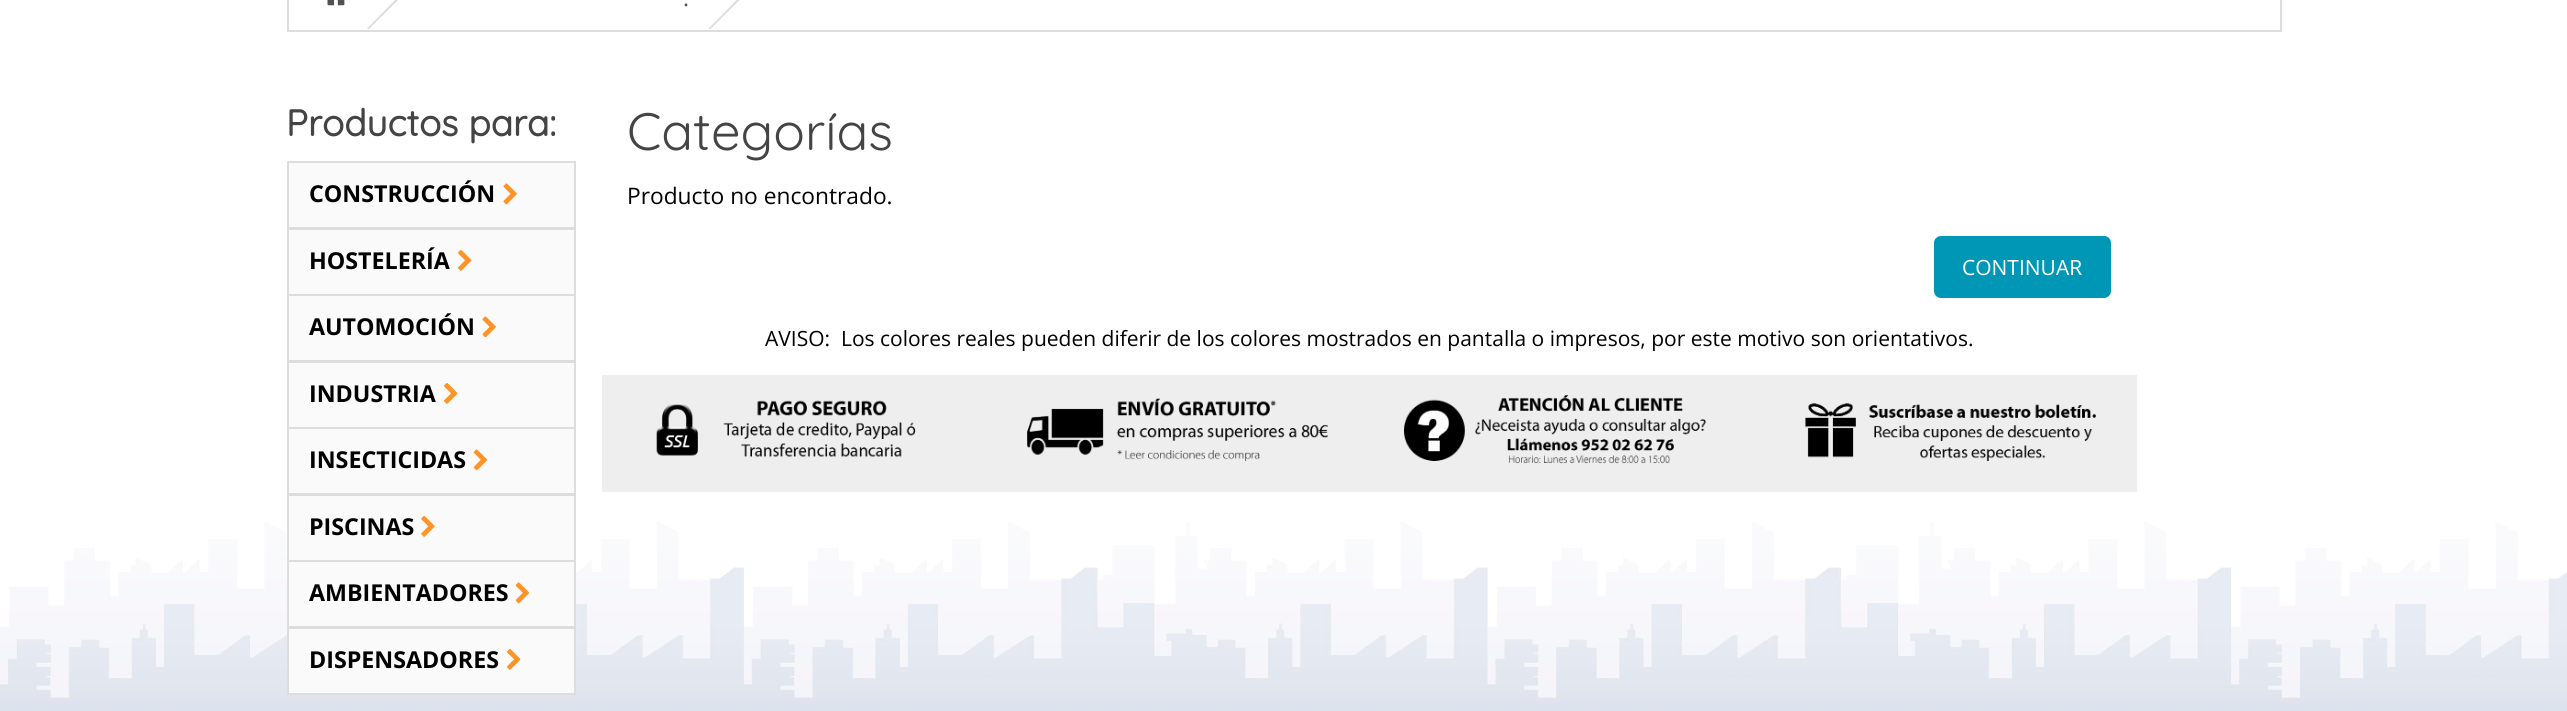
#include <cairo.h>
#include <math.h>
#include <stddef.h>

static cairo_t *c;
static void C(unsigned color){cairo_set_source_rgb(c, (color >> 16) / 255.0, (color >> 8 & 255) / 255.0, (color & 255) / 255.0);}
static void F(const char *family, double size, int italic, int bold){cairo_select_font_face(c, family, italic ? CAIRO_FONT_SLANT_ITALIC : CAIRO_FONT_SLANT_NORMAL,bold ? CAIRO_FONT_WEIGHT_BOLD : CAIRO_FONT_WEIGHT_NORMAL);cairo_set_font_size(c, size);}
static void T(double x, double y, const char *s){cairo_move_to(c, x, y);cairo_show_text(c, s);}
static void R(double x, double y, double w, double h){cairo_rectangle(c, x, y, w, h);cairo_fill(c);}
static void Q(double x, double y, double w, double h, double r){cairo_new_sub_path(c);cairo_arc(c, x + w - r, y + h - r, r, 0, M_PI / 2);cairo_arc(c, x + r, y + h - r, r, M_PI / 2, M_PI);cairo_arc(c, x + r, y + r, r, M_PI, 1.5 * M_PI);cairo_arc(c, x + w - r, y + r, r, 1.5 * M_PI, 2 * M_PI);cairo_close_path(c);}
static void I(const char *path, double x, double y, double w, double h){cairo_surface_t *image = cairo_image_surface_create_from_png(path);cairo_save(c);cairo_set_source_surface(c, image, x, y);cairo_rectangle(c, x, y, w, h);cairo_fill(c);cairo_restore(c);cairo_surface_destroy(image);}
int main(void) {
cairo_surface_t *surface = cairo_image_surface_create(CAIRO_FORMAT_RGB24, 2567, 711);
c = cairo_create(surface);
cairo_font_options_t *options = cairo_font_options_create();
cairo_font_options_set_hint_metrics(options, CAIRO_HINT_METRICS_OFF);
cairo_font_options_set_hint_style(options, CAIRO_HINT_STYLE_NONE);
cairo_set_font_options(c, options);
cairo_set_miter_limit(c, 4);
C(0xffffff);
cairo_paint(c);
I("1.png",0,522,2567,189);
cairo_rectangle(c,288,-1,1993,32);
C(0xdddddd);
cairo_stroke(c);
I("2.png",327,0,18,6);
cairo_new_path(c);
cairo_move_to(c,367,28.5);
cairo_line_to(c,399,-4);
cairo_line_to(c,400.5,-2.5);
cairo_line_to(c,368.5,29.5);
cairo_close_path(c);
cairo_fill(c);
F("Open Sans",22.75,0,0);
C(0x525252);
T(683,6,".");
C(0xdddddd);
cairo_new_path(c);
cairo_move_to(c,708.5,28.5);
cairo_line_to(c,740.5,-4);
cairo_line_to(c,742,-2.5);
cairo_line_to(c,710,29.5);
cairo_close_path(c);
cairo_fill(c);
F("Quicksand",36.75,0,1);
C(0x444444);
T(286,136,"Productos para:");
C(0xfafafa);
cairo_rectangle(c,288,162,287,66);
cairo_fill_preserve(c);
C(0xdddddd);
cairo_stroke(c);
F("Open Sans",23.25,0,1);
C(0x000000);
T(309,202,"CONSTRUCCIÓN");
I("3.png",503,183,14,22);
C(0xfafafa);
cairo_rectangle(c,288,229,287,66);
cairo_fill_preserve(c);
C(0xdddddd);
cairo_stroke(c);
C(0x000000);
T(309,269,"HOSTELERÍA");
I("4.png",458,249,14,22);
C(0xfafafa);
cairo_rectangle(c,288,295,287,66);
cairo_fill_preserve(c);
C(0xdddddd);
cairo_stroke(c);
C(0x000000);
T(309,335,"AUTOMOCIÓN");
I("3.png",482,316,14,22);
C(0xfafafa);
cairo_rectangle(c,288,362,287,66);
cairo_fill_preserve(c);
C(0xdddddd);
cairo_stroke(c);
C(0x000000);
T(309,402,"INDUSTRIA");
I("4.png",444,382,14,22);
C(0xfafafa);
cairo_rectangle(c,288,428,287,66);
cairo_fill_preserve(c);
C(0xdddddd);
cairo_stroke(c);
C(0x000000);
T(309,468,"INSECTICIDAS");
I("5.png",473,449,15,22);
C(0xfafafa);
cairo_rectangle(c,288,495,287,66);
cairo_fill_preserve(c);
C(0xdddddd);
cairo_stroke(c);
C(0x000000);
T(309,535,"PISCINAS");
I("6.png",421,515,14,22);
C(0xfafafa);
cairo_rectangle(c,288,561,287,66);
cairo_fill_preserve(c);
C(0xdddddd);
cairo_stroke(c);
C(0x000000);
T(309,601,"AMBIENTADORES");
I("5.png",515,582,15,22);
C(0xfafafa);
cairo_rectangle(c,288,628,287,66);
cairo_fill_preserve(c);
C(0xdddddd);
cairo_stroke(c);
C(0x000000);
T(309,668,"DISPENSADORES");
I("4.png",507,648,14,22);
F("Quicksand Light",52.5,0,0);
C(0x444444);
T(627,150,"Categorías");
F("Open Sans",22.75,0,0);
C(0x000000);
T(627,204,"Producto no encontrado.");
C(0x0097b7);
Q(1934,236,177,62,7);
cairo_fill(c);
F("Open Sans",21,0,0);
C(0xffffff);
T(1962,275,"CONTINUAR");
C(0x000000);
T(765,346,"AVISO:  Los colores reales pueden diferir de los colores mostrados en pantalla o impresos, por este motivo son orientativos.");
C(0xeeeeee);
R(602,375,1535,117);
I("7.png",656,400,260,57);
I("8.png",1027,398,301,64);
I("9.png",1404,395,303,69);
I("10.png",1805,403,291,58);
cairo_surface_write_to_png(surface, "o.png");
cairo_font_options_destroy(options);
cairo_destroy(c);
cairo_surface_destroy(surface);
return 0;
}
